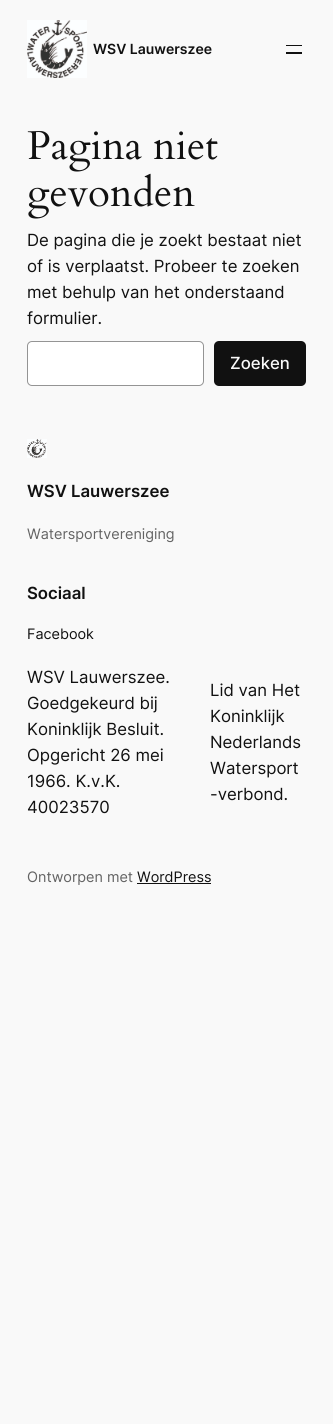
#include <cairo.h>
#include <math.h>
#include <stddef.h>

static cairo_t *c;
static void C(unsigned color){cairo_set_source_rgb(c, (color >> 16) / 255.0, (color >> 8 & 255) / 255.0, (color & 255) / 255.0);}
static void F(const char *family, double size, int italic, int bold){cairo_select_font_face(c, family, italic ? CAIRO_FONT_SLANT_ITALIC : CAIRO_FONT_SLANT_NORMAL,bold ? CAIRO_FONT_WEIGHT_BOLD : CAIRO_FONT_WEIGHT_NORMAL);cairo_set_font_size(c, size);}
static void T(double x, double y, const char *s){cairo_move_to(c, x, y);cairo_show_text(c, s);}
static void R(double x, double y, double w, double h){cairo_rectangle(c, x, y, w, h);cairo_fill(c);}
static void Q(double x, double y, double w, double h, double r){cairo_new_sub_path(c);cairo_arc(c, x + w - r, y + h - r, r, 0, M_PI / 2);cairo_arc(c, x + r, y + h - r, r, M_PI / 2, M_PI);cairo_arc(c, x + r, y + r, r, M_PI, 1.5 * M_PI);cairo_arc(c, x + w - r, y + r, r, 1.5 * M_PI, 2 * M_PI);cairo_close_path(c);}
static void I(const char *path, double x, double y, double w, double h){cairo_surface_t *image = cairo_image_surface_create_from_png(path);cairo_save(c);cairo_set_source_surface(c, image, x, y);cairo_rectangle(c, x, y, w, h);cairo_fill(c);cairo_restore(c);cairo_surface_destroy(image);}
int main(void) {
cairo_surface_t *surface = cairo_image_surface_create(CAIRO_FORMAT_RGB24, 333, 1424);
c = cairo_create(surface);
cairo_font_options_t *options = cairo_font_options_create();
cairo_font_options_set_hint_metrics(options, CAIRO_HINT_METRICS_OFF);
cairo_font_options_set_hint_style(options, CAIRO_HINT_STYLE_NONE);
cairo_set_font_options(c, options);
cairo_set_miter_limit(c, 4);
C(0xf9f9f9);
cairo_paint(c);
I("1.png",27,20,60,58);
F("Inter SemiBold",14,0,0);
C(0x111111);
T(93,54,"WSV Lauwerszee");
R(286,45,16,1);
R(286,52,16,2);
I("2.png",27,131,191,41);
I("3.png",28,173,167,46);
F("Inter",16.75,0,0);
T(27,246,"De pagina die je zoekt bestaat niet");
T(27,272,"of is verplaatst. Probeer te zoeken");
T(27,298,"met behulp van het onderstaand");
T(27,324,"formulier.");
C(0xffffff);
Q(27.5,341.5,176,44,4.5);
cairo_fill_preserve(c);
C(0x949494);
cairo_set_line_width(c,1);
cairo_stroke(c);
C(0x111111);
Q(214,341,92,45,5);
cairo_fill(c);
F("Inter Medium",16.75,0,0);
C(0xf9f9f9);
T(230,369,"Zoeken");
I("4.png",27,439,20,19);
F("Inter SemiBold",16.75,0,0);
C(0x111111);
T(27,497,"WSV Lauwerszee");
F("Inter",14.4,0,0);
C(0x636363);
T(27,539,"Watersportvereniging");
F("Inter SemiBold",16.75,0,0);
C(0x111111);
T(27,599,"Sociaal");
F("Inter",14.4,0,0);
T(27,639,"Facebook");
F("Inter",16.75,0,0);
T(27,683,"WSV Lauwerszee.");
T(27,709,"Goedgekeurd bij");
T(27,735,"Koninklijk Besluit.");
T(27,761,"Opgericht 26 mei");
T(27,787,"1966. K.v.K.");
T(27,813,"40023570");
T(210,696,"Lid van Het");
T(210,722,"Koninklijk");
T(210,748,"Nederlands");
T(210,774,"Watersport");
T(210,800,"-verbond.");
F("Inter",14.4,0,0);
C(0x636363);
T(27,882,"Ontworpen met");
C(0x111111);
T(137,882,"WordPress");
R(137,883,74,1);
cairo_surface_write_to_png(surface, "o.png");
cairo_font_options_destroy(options);
cairo_destroy(c);
cairo_surface_destroy(surface);
return 0;
}
